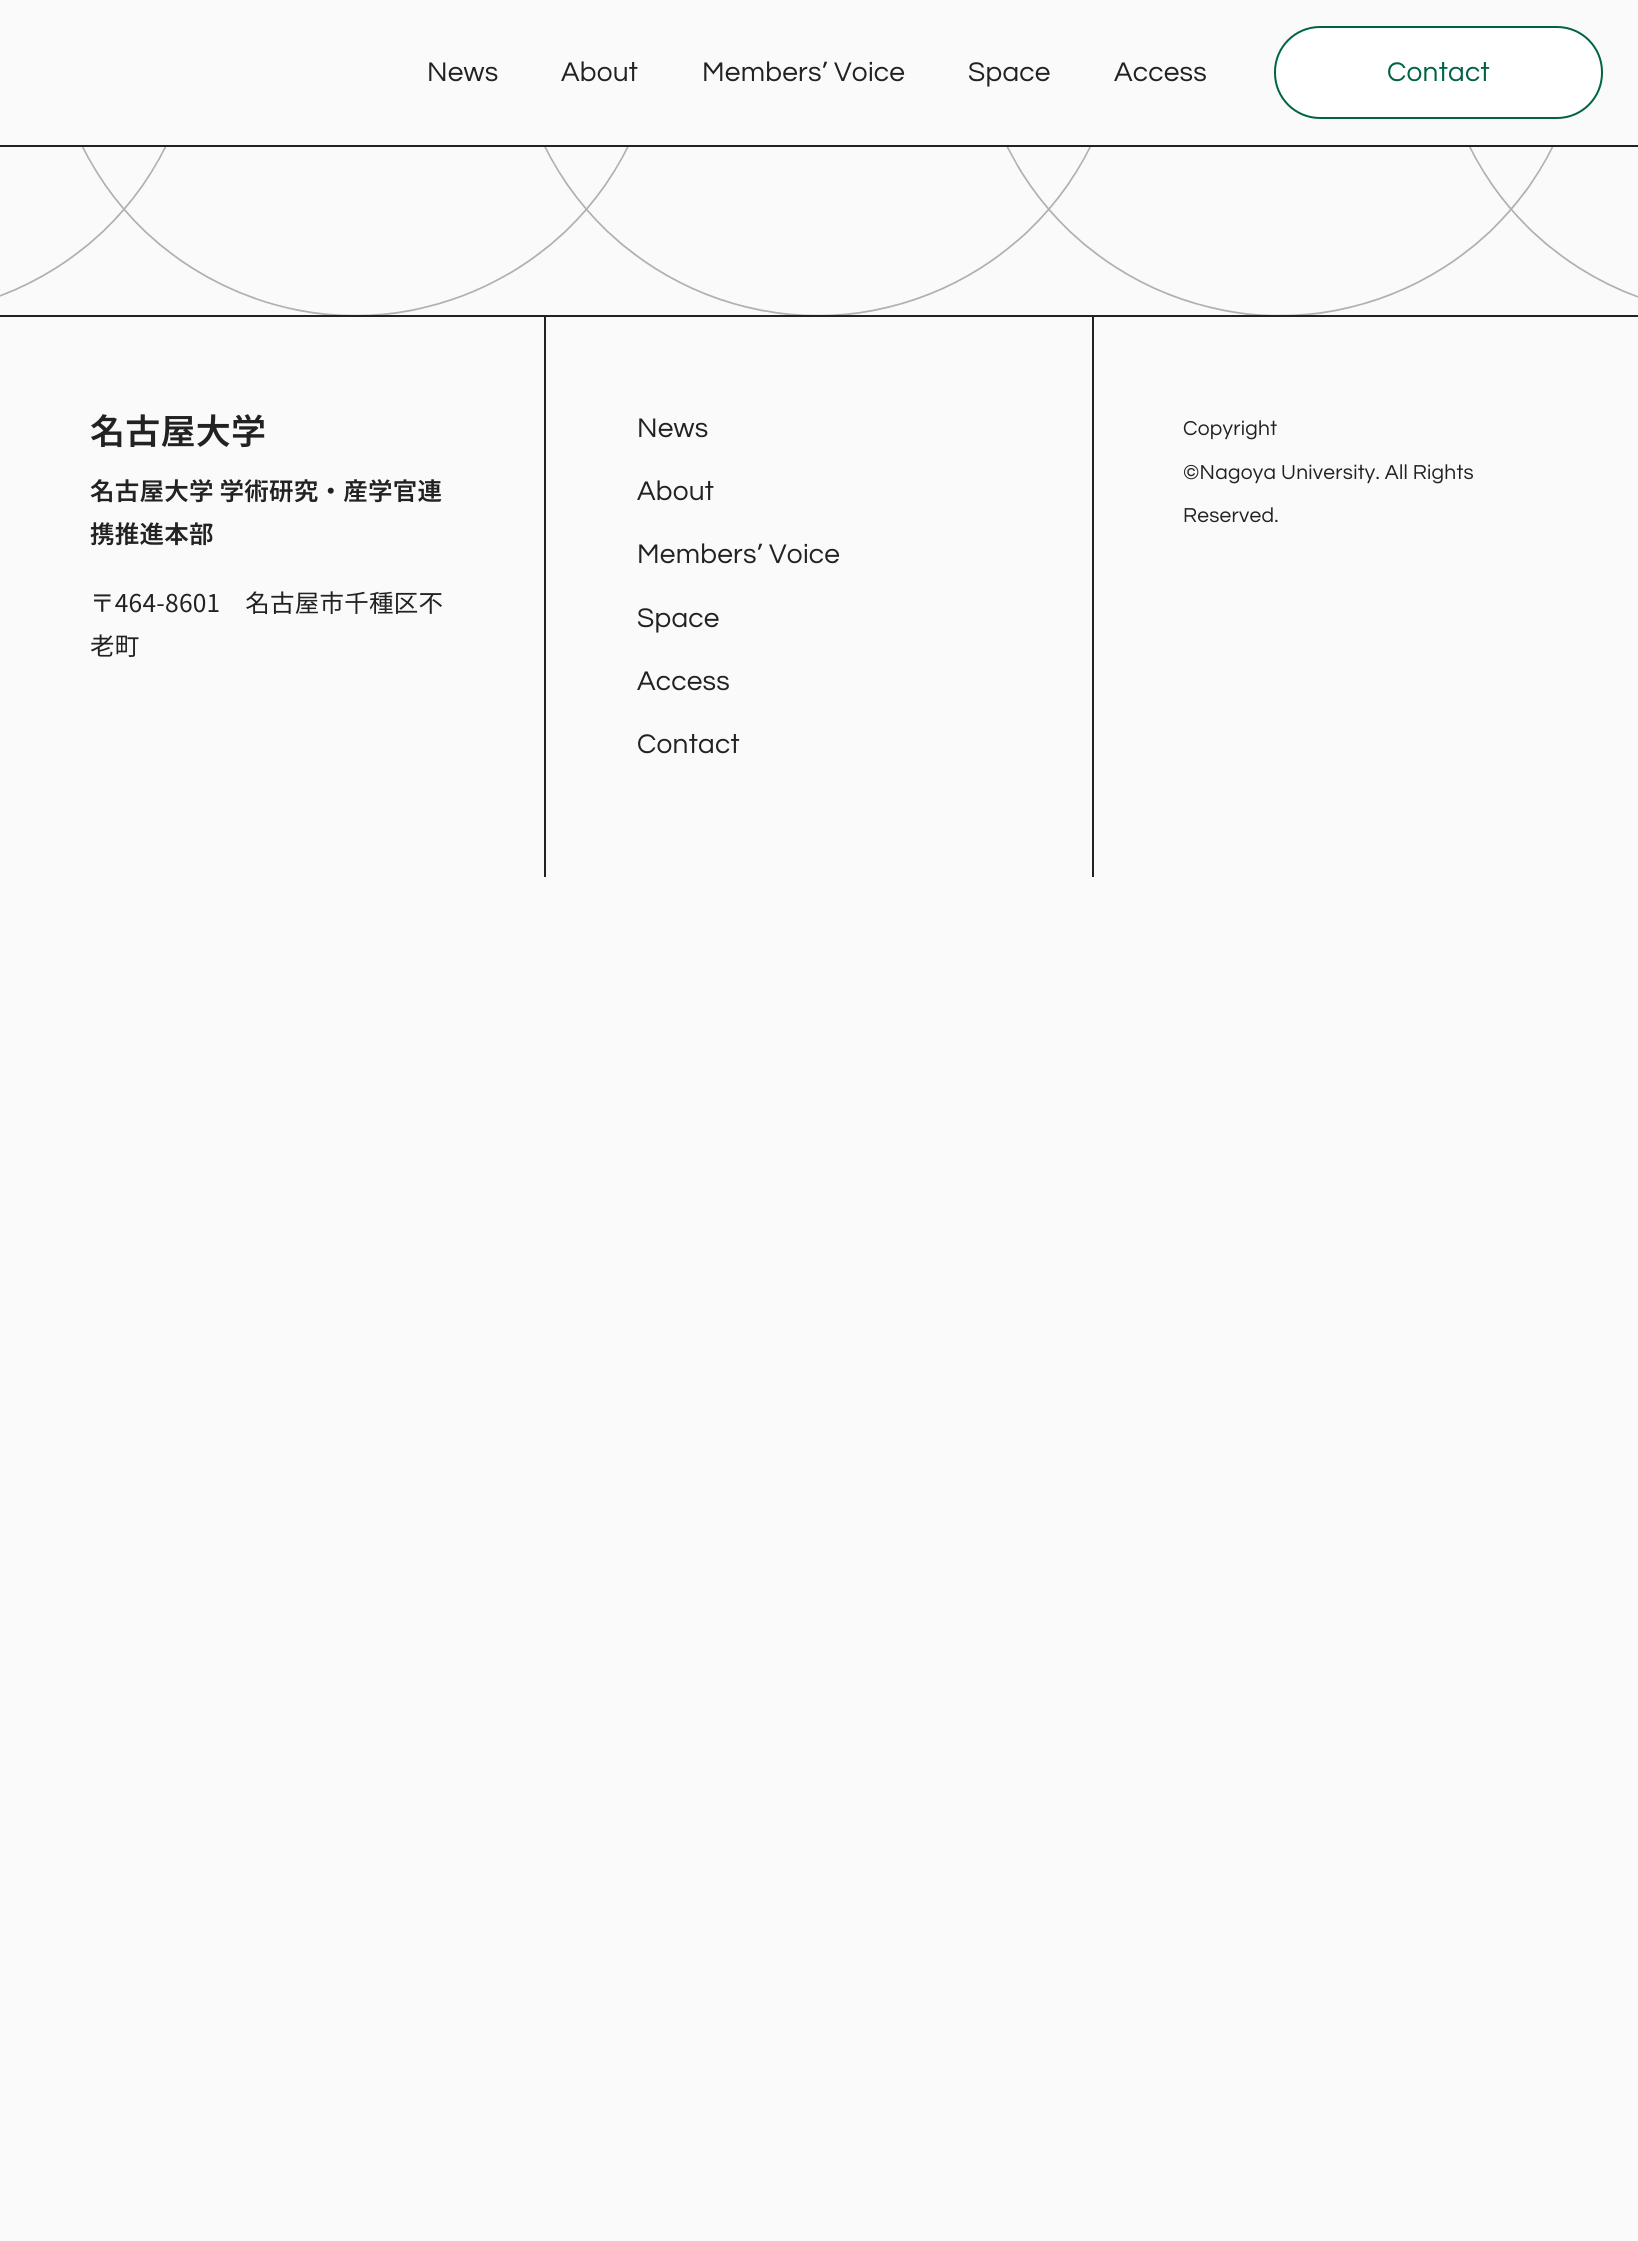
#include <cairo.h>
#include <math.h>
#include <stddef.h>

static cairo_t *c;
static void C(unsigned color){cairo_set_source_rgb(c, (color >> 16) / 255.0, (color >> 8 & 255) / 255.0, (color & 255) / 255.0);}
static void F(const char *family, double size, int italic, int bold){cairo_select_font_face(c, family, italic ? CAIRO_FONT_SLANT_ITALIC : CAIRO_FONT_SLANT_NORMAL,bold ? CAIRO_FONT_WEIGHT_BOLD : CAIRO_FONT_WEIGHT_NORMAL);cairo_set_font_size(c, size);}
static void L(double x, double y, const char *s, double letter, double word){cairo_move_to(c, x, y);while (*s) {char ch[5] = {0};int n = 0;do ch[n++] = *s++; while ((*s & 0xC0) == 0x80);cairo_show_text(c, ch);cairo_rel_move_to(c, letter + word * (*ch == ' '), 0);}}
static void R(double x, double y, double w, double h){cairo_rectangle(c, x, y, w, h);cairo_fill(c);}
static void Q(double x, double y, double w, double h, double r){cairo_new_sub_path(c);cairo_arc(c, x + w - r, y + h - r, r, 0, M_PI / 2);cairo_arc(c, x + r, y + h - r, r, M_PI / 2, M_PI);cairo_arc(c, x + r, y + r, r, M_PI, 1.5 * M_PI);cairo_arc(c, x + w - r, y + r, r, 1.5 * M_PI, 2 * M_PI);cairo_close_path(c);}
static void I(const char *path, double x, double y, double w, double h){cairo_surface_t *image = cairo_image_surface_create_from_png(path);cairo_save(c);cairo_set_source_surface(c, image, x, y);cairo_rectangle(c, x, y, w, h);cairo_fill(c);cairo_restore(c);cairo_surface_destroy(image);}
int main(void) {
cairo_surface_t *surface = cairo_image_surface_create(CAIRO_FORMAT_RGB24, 1638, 2241);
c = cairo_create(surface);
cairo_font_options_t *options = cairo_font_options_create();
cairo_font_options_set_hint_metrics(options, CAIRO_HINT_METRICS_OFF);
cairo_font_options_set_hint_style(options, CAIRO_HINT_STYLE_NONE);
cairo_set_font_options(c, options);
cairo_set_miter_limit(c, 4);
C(0xfafafa);
cairo_paint(c);
C(0x222222);
R(0,145,1638,2);
F("Questrial",28,0,0);
L(427,81,"News",.25,0);
L(561,81,"About",.25,0);
L(702,81,"Members’ Voice",.25,0);
L(968,81,"Space",.25,0);
L(1114,81,"Access",.25,0);
C(0xffffff);
Q(1275,27,327,91,45);
cairo_fill_preserve(c);
C(0x006346);
cairo_stroke(c);
L(1387,81,"Contact",.25,0);
I("1.png",0,147,1638,168);
C(0x222222);
R(0,315,1638,2);
R(544,317,2,560);
F("Noto Sans JP SemiBold",35,0,0);
L(90,444,"名古屋大学",.25,0);
F("Noto Sans JP SemiBold",24.5,0,0);
L(90,500,"名古屋大学 学術研究・産学官連",.25,0);
L(90,543,"携推進本部",.25,0);
F("Noto Sans JP",24.5,0,0);
L(90,612,"〒464-8601　名古屋市千種区不",.25,0);
L(90,655,"老町",.25,0);
R(1092,317,2,560);
F("Questrial",28,0,0);
L(637,437,"News",.25,0);
L(637,500,"About",.25,0);
L(637,563,"Members’ Voice",.25,0);
L(637,627,"Space",.25,0);
L(637,690,"Access",.25,0);
L(637,753,"Contact",.25,0);
F("Questrial",21,0,0);
L(1183,435,"Copyright",.25,0);
L(1183,479,"©Nagoya University. All Rights",.25,0);
L(1183,522,"Reserved.",.25,0);
cairo_surface_write_to_png(surface, "o.png");
cairo_font_options_destroy(options);
cairo_destroy(c);
cairo_surface_destroy(surface);
return 0;
}
